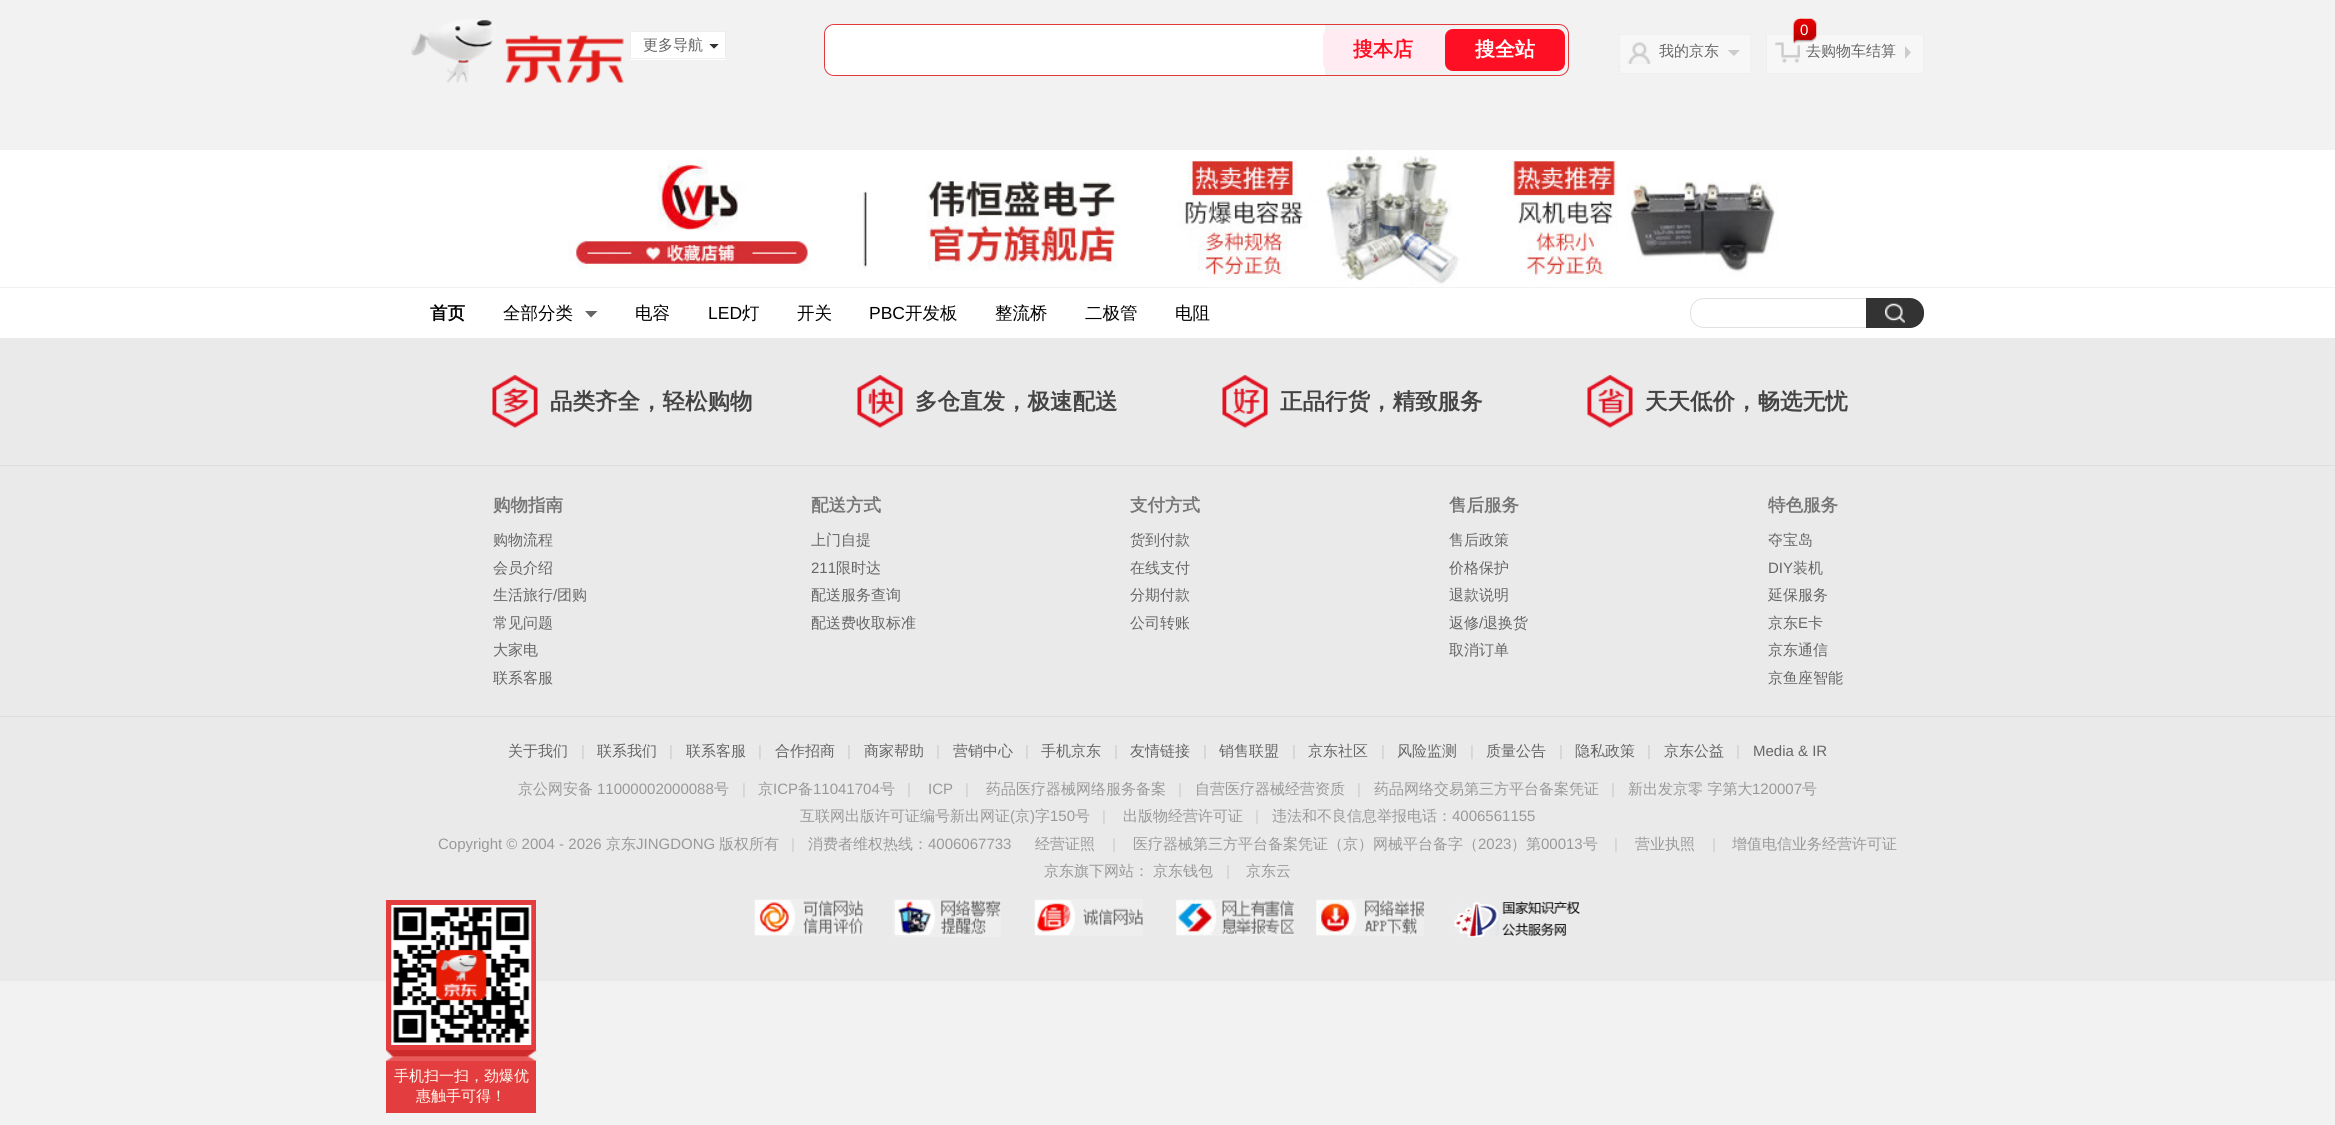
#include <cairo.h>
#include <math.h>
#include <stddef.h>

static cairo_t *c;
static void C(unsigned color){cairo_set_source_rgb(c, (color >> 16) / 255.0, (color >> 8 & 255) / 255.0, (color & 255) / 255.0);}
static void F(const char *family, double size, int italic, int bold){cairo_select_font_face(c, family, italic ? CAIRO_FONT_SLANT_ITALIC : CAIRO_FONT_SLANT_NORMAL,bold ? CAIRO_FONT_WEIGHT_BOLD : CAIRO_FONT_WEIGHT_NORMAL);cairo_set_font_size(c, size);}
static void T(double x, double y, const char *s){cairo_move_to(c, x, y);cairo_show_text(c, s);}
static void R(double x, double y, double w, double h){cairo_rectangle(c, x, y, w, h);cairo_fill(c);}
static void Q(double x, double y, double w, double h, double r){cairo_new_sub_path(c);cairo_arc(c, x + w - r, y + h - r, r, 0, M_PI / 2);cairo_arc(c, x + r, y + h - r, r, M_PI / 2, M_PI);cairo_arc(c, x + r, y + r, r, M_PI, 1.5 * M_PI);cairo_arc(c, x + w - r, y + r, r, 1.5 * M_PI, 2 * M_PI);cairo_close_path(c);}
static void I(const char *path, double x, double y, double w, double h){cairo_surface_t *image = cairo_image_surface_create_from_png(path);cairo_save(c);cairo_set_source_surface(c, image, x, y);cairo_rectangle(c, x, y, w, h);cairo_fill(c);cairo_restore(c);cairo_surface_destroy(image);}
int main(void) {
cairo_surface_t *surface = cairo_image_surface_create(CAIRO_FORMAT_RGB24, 2335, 1125);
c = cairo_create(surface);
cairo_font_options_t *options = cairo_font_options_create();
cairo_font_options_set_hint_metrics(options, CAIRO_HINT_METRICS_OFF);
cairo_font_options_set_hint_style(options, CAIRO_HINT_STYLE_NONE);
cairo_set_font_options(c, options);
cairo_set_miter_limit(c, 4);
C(0xf2f2f2);
cairo_paint(c);
I("1.png",411,19,213,64);
C(0xffffff);
R(630,32,96,28);
cairo_rectangle(c,630.5,31.5,95,27);
C(0xeeeeee);
cairo_set_line_width(c,1);
cairo_stroke(c);
F("WenQuanYi Zen Hei Medium",15,0,0);
C(0x666666);
T(643,50,"更多导航");
C(0x333333);
cairo_new_path(c);
cairo_move_to(c,709,44);
cairo_line_to(c,719,44);
cairo_line_to(c,714,49);
cairo_close_path(c);
cairo_fill(c);
C(0xffffff);
cairo_new_path(c);
cairo_move_to(c,719,44);
cairo_line_to(c,719,54);
cairo_line_to(c,714,49);
cairo_close_path(c);
cairo_move_to(c,709,54);
cairo_line_to(c,709,44);
cairo_line_to(c,714,49);
cairo_close_path(c);
cairo_fill(c);
Q(824.5,24.5,744,51,9.5);
C(0xe4393c);
cairo_stroke(c);
C(0xffffff);
cairo_new_path(c);
cairo_move_to(c,835,25);
cairo_line_to(c,1325,25);
cairo_line_to(c,1325,75);
cairo_line_to(c,835,75);
cairo_curve_to(c,829.5,75,825,70.5,825,65);
cairo_line_to(c,825,35);
cairo_curve_to(c,825,29.5,829.5,25,835,25);
cairo_close_path(c);
cairo_fill(c);
C(0xffebf1);
Q(1323,29,120,42,8);
cairo_fill(c);
F("WenQuanYi Zen Hei",20,0,1);
C(0xff0f23);
T(1353,56,"搜本店");
Q(1445,29,120,42,8);
cairo_fill(c);
C(0xffffff);
T(1475,56,"搜全站");
C(0xf7f7f7);
R(1620,35,130,38);
I("2.png",1618,42,33,26);
cairo_rectangle(c,1619.5,34.5,131,39);
C(0xefefef);
cairo_stroke(c);
F("WenQuanYi Zen Hei Medium",15,0,0);
C(0x666666);
T(1659,56,"我的京东");
C(0xcccccc);
cairo_new_path(c);
cairo_move_to(c,1727.5,50);
cairo_line_to(c,1740,50);
cairo_line_to(c,1734,56);
cairo_close_path(c);
cairo_fill(c);
C(0xf7f7f7);
R(1767,35,156,38);
I("3.png",1775,42,25,21);
cairo_rectangle(c,1766.5,34.5,157,39);
C(0xefefef);
cairo_stroke(c);
C(0x666666);
T(1806,56,"去购物车结算");
I("4.png",1792,18,25,26);
I("5.png",1800,18,17,25);
F("Liberation Sans",15,0,0);
C(0xffffff);
T(1800,35,"0");
C(0xcccccc);
cairo_new_path(c);
cairo_move_to(c,1905,59);
cairo_line_to(c,1905,46);
cairo_line_to(c,1911,52.5);
cairo_close_path(c);
cairo_fill(c);
I("6.png",0,150,2335,137);
C(0xffffff);
R(0,288,2335,50);
F("WenQuanYi Zen Hei",17.5,0,1);
C(0x000000);
T(430,319,"首页");
F("WenQuanYi Zen Hei Medium",17.5,0,0);
T(503,319,"全部分类");
C(0x666666);
cairo_new_path(c);
cairo_move_to(c,585,311);
cairo_line_to(c,597.5,311);
cairo_line_to(c,591,317.5);
cairo_close_path(c);
cairo_fill(c);
C(0x000000);
T(635,319,"电容");
F("Liberation Sans",17.5,0,0);
T(708,319,"LED");
F("WenQuanYi Zen Hei Medium",17.5,0,0);
T(742,319,"灯");
T(797,319,"开关");
F("Liberation Sans",17.5,0,0);
T(869,319,"PBC");
F("WenQuanYi Zen Hei Medium",17.5,0,0);
T(905,319,"开发板");
T(995,319,"整流桥");
T(1085,319,"二极管");
T(1175,319,"电阻");
cairo_new_path(c);
cairo_move_to(c,1704,298.5);
cairo_line_to(c,1867.5,298.5);
cairo_line_to(c,1867.5,327.5);
cairo_line_to(c,1704,327.5);
cairo_curve_to(c,1696.5,327.5,1690.5,321.5,1690.5,314);
cairo_line_to(c,1690.5,312);
cairo_curve_to(c,1690.5,304.5,1696.5,298.5,1704,298.5);
cairo_close_path(c);
C(0xe1e1e1);
cairo_stroke(c);
C(0x333333);
cairo_new_path(c);
cairo_move_to(c,1866,298);
cairo_line_to(c,1910,298);
cairo_curve_to(c,1917.5,298,1924,304.5,1924,312);
cairo_line_to(c,1924,314);
cairo_curve_to(c,1924,321.5,1917.5,328,1910,328);
cairo_line_to(c,1866,328);
cairo_close_path(c);
cairo_fill(c);
I("7.png",1885,303,20,20);
C(0xeaeaea);
R(0,338,2335,643);
I("8.png",492,375,46,53);
F("WenQuanYi Zen Hei",22.5,0,1);
C(0x444444);
T(550,409,"品类齐全，轻松购物");
I("9.png",857,375,46,53);
T(915,409,"多仓直发，极速配送");
I("10.png",1222,375,46,53);
T(1280,409,"正品行货，精致服务");
I("11.png",1587,375,46,53);
T(1645,409,"天天低价，畅选无忧");
C(0xdedede);
R(0,465,2335,1);
R(0,716,2335,1);
F("WenQuanYi Zen Hei",17.5,0,1);
C(0x777777);
T(493,511,"购物指南");
F("WenQuanYi Zen Hei Medium",15,0,0);
C(0x666666);
T(493,545,"购物流程");
T(493,573,"会员介绍");
T(493,600,"生活旅行");
F("Liberation Sans",15,0,0);
T(553,600,"/");
F("WenQuanYi Zen Hei Medium",15,0,0);
T(557,600,"团购");
T(493,628,"常见问题");
T(493,655,"大家电");
cairo_save(c);
cairo_rectangle(c,493,664,318,27);
cairo_clip(c);
T(493,683,"联系客服");
cairo_restore(c);
F("WenQuanYi Zen Hei",17.5,0,1);
C(0x777777);
T(811,511,"配送方式");
F("WenQuanYi Zen Hei Medium",15,0,0);
C(0x666666);
T(811,545,"上门自提");
F("Liberation Sans",15,0,0);
T(811,573,"211");
F("WenQuanYi Zen Hei Medium",15,0,0);
T(836,573,"限时达");
T(811,600,"配送服务查询");
T(811,628,"配送费收取标准");
F("WenQuanYi Zen Hei",17.5,0,1);
C(0x777777);
T(1130,511,"支付方式");
F("WenQuanYi Zen Hei Medium",15,0,0);
C(0x666666);
T(1130,545,"货到付款");
T(1130,573,"在线支付");
T(1130,600,"分期付款");
T(1130,628,"公司转账");
F("WenQuanYi Zen Hei",17.5,0,1);
C(0x777777);
T(1449,511,"售后服务");
F("WenQuanYi Zen Hei Medium",15,0,0);
C(0x666666);
T(1449,545,"售后政策");
T(1449,573,"价格保护");
T(1449,600,"退款说明");
T(1449,628,"返修");
F("Liberation Sans",15,0,0);
T(1479,628,"/");
F("WenQuanYi Zen Hei Medium",15,0,0);
T(1483,628,"退换货");
T(1449,655,"取消订单");
F("WenQuanYi Zen Hei",17.5,0,1);
C(0x777777);
T(1768,511,"特色服务");
F("WenQuanYi Zen Hei Medium",15,0,0);
C(0x666666);
T(1768,545,"夺宝岛");
F("Liberation Sans",15,0,0);
T(1768,573,"DIY");
F("WenQuanYi Zen Hei Medium",15,0,0);
T(1793,573,"装机");
T(1768,600,"延保服务");
T(1768,628,"京东");
F("Liberation Sans",15,0,0);
T(1798,628,"E");
F("WenQuanYi Zen Hei Medium",15,0,0);
T(1808,628,"卡");
T(1768,655,"京东通信");
T(1768,683,"京鱼座智能");
T(508,756,"关于我们");
F("Liberation Sans",15,0,0);
C(0xcccccc);
T(581,756,"|");
F("WenQuanYi Zen Hei Medium",15,0,0);
C(0x666666);
T(597,756,"联系我们");
F("Liberation Sans",15,0,0);
C(0xcccccc);
T(669,756,"|");
F("WenQuanYi Zen Hei Medium",15,0,0);
C(0x666666);
T(686,756,"联系客服");
F("Liberation Sans",15,0,0);
C(0xcccccc);
T(758,756,"|");
F("WenQuanYi Zen Hei Medium",15,0,0);
C(0x666666);
T(775,756,"合作招商");
F("Liberation Sans",15,0,0);
C(0xcccccc);
T(847,756,"|");
F("WenQuanYi Zen Hei Medium",15,0,0);
C(0x666666);
T(864,756,"商家帮助");
F("Liberation Sans",15,0,0);
C(0xcccccc);
T(936,756,"|");
F("WenQuanYi Zen Hei Medium",15,0,0);
C(0x666666);
T(953,756,"营销中心");
F("Liberation Sans",15,0,0);
C(0xcccccc);
T(1025,756,"|");
F("WenQuanYi Zen Hei Medium",15,0,0);
C(0x666666);
T(1041,756,"手机京东");
F("Liberation Sans",15,0,0);
C(0xcccccc);
T(1114,756,"|");
F("WenQuanYi Zen Hei Medium",15,0,0);
C(0x666666);
T(1130,756,"友情链接");
F("Liberation Sans",15,0,0);
C(0xcccccc);
T(1203,756,"|");
F("WenQuanYi Zen Hei Medium",15,0,0);
C(0x666666);
T(1219,756,"销售联盟");
F("Liberation Sans",15,0,0);
C(0xcccccc);
T(1292,756,"|");
F("WenQuanYi Zen Hei Medium",15,0,0);
C(0x666666);
T(1308,756,"京东社区");
F("Liberation Sans",15,0,0);
C(0xcccccc);
T(1381,756,"|");
F("WenQuanYi Zen Hei Medium",15,0,0);
C(0x666666);
T(1397,756,"风险监测");
F("Liberation Sans",15,0,0);
C(0xcccccc);
T(1470,756,"|");
F("WenQuanYi Zen Hei Medium",15,0,0);
C(0x666666);
T(1486,756,"质量公告");
F("Liberation Sans",15,0,0);
C(0xcccccc);
T(1559,756,"|");
F("WenQuanYi Zen Hei Medium",15,0,0);
C(0x666666);
T(1575,756,"隐私政策");
F("Liberation Sans",15,0,0);
C(0xcccccc);
T(1647,756,"|");
F("WenQuanYi Zen Hei Medium",15,0,0);
C(0x666666);
T(1664,756,"京东公益");
F("Liberation Sans",15,0,0);
C(0xcccccc);
T(1736,756,"|");
C(0x666666);
T(1753,756,"Media & IR");
F("WenQuanYi Zen Hei Medium",15,0,0);
C(0x999999);
T(518,794,"京公网安备");
F("Liberation Sans",15,0,0);
T(597,794,"11000002000088");
F("WenQuanYi Zen Hei Medium",15,0,0);
T(714,794,"号");
F("Liberation Sans",15,0,0);
C(0xcccccc);
T(742,794,"|");
F("WenQuanYi Zen Hei Medium",15,0,0);
C(0x999999);
T(758,794,"京");
F("Liberation Sans",15,0,0);
T(773,794,"ICP");
F("WenQuanYi Zen Hei Medium",15,0,0);
T(798,794,"备");
F("Liberation Sans",15,0,0);
T(813,794,"11041704");
F("WenQuanYi Zen Hei Medium",15,0,0);
T(880,794,"号");
F("Liberation Sans",15,0,0);
C(0xcccccc);
T(907,794,"|");
C(0x999999);
T(928,794,"ICP");
C(0xcccccc);
T(965,794,"|");
F("WenQuanYi Zen Hei Medium",15,0,0);
C(0x999999);
T(986,794,"药品医疗器械网络服务备案");
F("Liberation Sans",15,0,0);
C(0xcccccc);
T(1178,794,"|");
F("WenQuanYi Zen Hei Medium",15,0,0);
C(0x999999);
T(1195,794,"自营医疗器械经营资质");
F("Liberation Sans",15,0,0);
C(0xcccccc);
T(1357,794,"|");
F("WenQuanYi Zen Hei Medium",15,0,0);
C(0x999999);
T(1374,794,"药品网络交易第三方平台备案凭证");
F("Liberation Sans",15,0,0);
C(0xcccccc);
T(1611,794,"|");
F("WenQuanYi Zen Hei Medium",15,0,0);
C(0x999999);
T(1628,794,"新出发京零 字第大");
F("Liberation Sans",15,0,0);
T(1752,794,"120007");
F("WenQuanYi Zen Hei Medium",15,0,0);
T(1802,794,"号");
T(800,821,"互联网出版许可证编号新出网证");
F("Liberation Sans",15,0,0);
T(1010,821,"(");
F("WenQuanYi Zen Hei Medium",15,0,0);
T(1015,821,"京");
F("Liberation Sans",15,0,0);
T(1030,821,")");
F("WenQuanYi Zen Hei Medium",15,0,0);
T(1035,821,"字");
F("Liberation Sans",15,0,0);
T(1050,821,"150");
F("WenQuanYi Zen Hei Medium",15,0,0);
T(1075,821,"号");
F("Liberation Sans",15,0,0);
C(0xcccccc);
T(1102,821,"|");
F("WenQuanYi Zen Hei Medium",15,0,0);
C(0x999999);
T(1123,821,"出版物经营许可证");
F("Liberation Sans",15,0,0);
C(0xcccccc);
T(1255,821,"|");
F("WenQuanYi Zen Hei Medium",15,0,0);
C(0x999999);
T(1272,821,"违法和不良信息举报电话：");
F("Liberation Sans",15,0,0);
T(1452,821,"4006561155");
T(438,849,"Copyright © 2004 - 2026");
F("WenQuanYi Zen Hei Medium",15,0,0);
T(606,849,"京东");
F("Liberation Sans",15,0,0);
T(636,849,"JINGDONG");
F("WenQuanYi Zen Hei Medium",15,0,0);
T(719,849,"版权所有");
F("Liberation Sans",15,0,0);
C(0xcccccc);
T(791,849,"|");
F("WenQuanYi Zen Hei Medium",15,0,0);
C(0x999999);
T(808,849,"消费者维权热线：");
F("Liberation Sans",15,0,0);
T(928,849,"4006067733");
F("WenQuanYi Zen Hei Medium",15,0,0);
T(1035,849,"经营证照");
F("Liberation Sans",15,0,0);
C(0xcccccc);
T(1112,849,"|");
F("WenQuanYi Zen Hei Medium",15,0,0);
C(0x999999);
T(1133,849,"医疗器械第三方平台备案凭证（京）网械平台备字（");
F("Liberation Sans",15,0,0);
T(1478,849,"2023");
F("WenQuanYi Zen Hei Medium",15,0,0);
T(1511,849,"）第");
F("Liberation Sans",15,0,0);
T(1541,849,"00013");
F("WenQuanYi Zen Hei Medium",15,0,0);
T(1583,849,"号");
F("Liberation Sans",15,0,0);
C(0xcccccc);
T(1614,849,"|");
F("WenQuanYi Zen Hei Medium",15,0,0);
C(0x999999);
T(1635,849,"营业执照");
F("Liberation Sans",15,0,0);
C(0xcccccc);
T(1712,849,"|");
F("WenQuanYi Zen Hei Medium",15,0,0);
C(0x999999);
T(1732,849,"增值电信业务经营许可证");
T(1044,876,"京东旗下网站：");
T(1153,876,"京东钱包");
F("Liberation Sans",15,0,0);
C(0xcccccc);
T(1226,876,"|");
F("WenQuanYi Zen Hei Medium",15,0,0);
C(0x999999);
T(1246,876,"京东云");
I("12.png",754,899,109,37);
I("13.png",893,899,108,38);
I("14.png",1034,899,109,37);
I("15.png",1176,899,118,37);
I("16.png",1316,899,108,37);
I("17.png",1454,901,126,37);
C(0xe43d3f);
R(386,900,150,150);
I("18.png",391,905,141,140);
I("19.png",386,1050,151,12);
R(386,1061,150,52);
C(0xfffbee);
T(394,1081,"手机扫一扫，劲爆优");
T(416,1101,"惠触手可得！");
cairo_surface_write_to_png(surface, "o.png");
cairo_font_options_destroy(options);
cairo_destroy(c);
cairo_surface_destroy(surface);
return 0;
}
